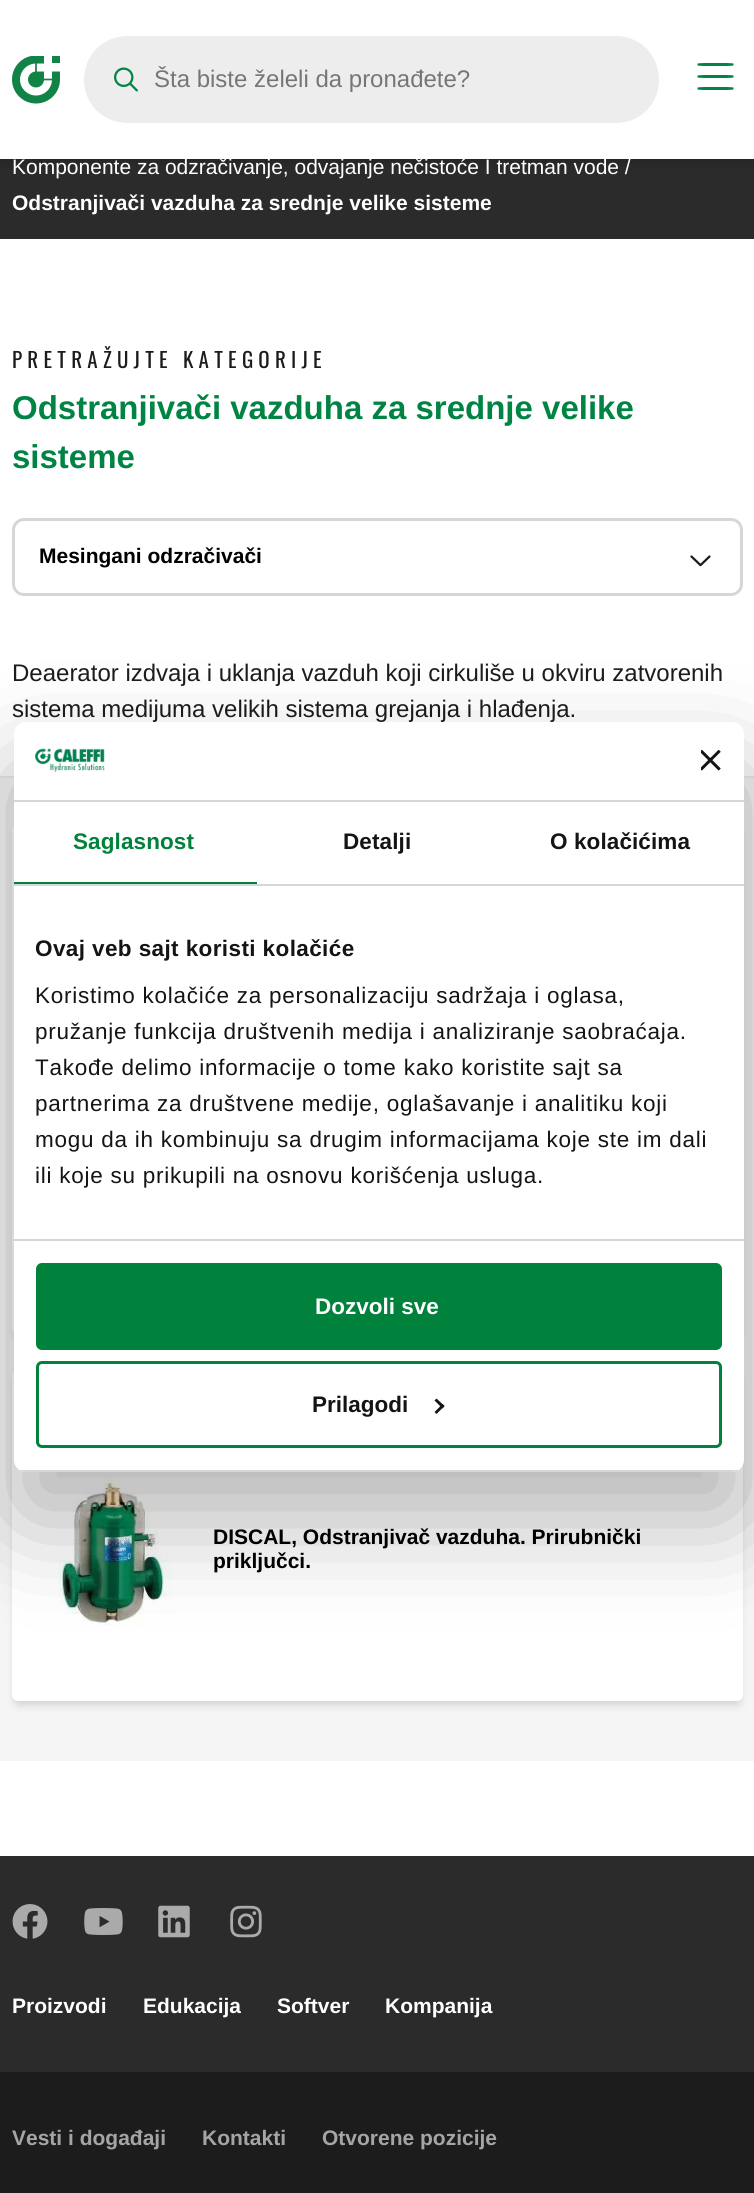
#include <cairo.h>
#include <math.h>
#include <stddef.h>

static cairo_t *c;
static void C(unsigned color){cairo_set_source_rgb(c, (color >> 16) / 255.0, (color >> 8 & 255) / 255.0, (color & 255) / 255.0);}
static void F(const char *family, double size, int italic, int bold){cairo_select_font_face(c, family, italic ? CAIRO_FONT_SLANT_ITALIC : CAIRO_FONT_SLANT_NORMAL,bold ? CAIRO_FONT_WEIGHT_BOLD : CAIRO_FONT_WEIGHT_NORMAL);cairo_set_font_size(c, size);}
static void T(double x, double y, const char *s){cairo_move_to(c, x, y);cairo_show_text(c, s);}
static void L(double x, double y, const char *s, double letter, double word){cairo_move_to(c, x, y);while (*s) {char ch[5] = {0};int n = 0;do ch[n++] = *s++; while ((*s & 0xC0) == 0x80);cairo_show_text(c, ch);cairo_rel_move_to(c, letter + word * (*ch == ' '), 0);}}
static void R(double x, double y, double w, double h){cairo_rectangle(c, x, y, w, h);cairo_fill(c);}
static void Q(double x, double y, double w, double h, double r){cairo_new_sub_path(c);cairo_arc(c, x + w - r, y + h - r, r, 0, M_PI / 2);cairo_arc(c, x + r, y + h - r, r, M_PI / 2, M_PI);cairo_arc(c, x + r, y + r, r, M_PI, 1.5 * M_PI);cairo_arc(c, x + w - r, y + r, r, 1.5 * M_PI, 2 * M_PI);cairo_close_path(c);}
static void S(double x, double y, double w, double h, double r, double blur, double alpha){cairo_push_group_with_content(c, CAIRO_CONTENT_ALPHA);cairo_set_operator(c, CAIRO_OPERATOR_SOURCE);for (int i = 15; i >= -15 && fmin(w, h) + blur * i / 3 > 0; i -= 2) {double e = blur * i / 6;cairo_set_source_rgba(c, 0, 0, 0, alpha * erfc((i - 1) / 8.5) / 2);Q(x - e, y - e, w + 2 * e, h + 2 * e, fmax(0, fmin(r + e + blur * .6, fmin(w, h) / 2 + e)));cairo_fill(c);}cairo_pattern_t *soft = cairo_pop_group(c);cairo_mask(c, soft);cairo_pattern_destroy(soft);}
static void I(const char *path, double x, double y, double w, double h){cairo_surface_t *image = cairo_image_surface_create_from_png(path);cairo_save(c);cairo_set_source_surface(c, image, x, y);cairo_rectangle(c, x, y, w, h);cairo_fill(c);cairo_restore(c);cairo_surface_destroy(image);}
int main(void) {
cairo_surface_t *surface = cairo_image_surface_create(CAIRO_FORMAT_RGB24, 754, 2193);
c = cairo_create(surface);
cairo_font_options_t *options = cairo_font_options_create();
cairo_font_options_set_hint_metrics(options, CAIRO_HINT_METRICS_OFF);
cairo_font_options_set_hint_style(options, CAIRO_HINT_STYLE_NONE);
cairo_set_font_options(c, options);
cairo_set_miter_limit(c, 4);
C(0xffffff);
cairo_paint(c);
C(0x2b2b2b);
R(0,159,754,80);
C(0x000000);
S(2,8,751,156,0,4.5,.1);
S(2,5,751,156,0,3,.06);
C(0xffffff);
R(0,1,754,158);
I("1.png",12,56,48,48);
C(0xededed);
cairo_new_path(c);
cairo_move_to(c,128,36);
cairo_line_to(c,616,36);
cairo_curve_to(c,640,36,659,55,659,80);
cairo_curve_to(c,659,104,640,123,616,123);
cairo_line_to(c,128,123);
cairo_curve_to(c,103,123,84,104,84,80);
cairo_curve_to(c,84,55,103,36,128,36);
cairo_close_path(c);
cairo_fill(c);
I("2.png",114,67,24,25);
F("Liberation Sans",24,0,0);
C(0x767676);
T(154,87,"Šta biste želeli da pronađete?");
C(0x008444);
cairo_new_path(c);
cairo_move_to(c,704.5,63);
cairo_line_to(c,726.5,63);
cairo_curve_to(c,730.5,63,733.5,63.5,733.5,63.5);
cairo_line_to(c,733.5,65.5);
cairo_curve_to(c,733.5,65.5,730.5,66,726.5,66);
cairo_line_to(c,704.5,66);
cairo_curve_to(c,700.5,66,697.5,65.5,697.5,65.5);
cairo_line_to(c,697.5,63.5);
cairo_curve_to(c,697.5,63.5,700.5,63,704.5,63);
cairo_close_path(c);
cairo_move_to(c,704.5,75);
cairo_line_to(c,726.5,75);
cairo_curve_to(c,730.5,75,733.5,75.5,733.5,75.5);
cairo_line_to(c,733.5,77.5);
cairo_curve_to(c,733.5,77.5,730.5,78,726.5,78);
cairo_line_to(c,704.5,78);
cairo_curve_to(c,700.5,78,697.5,77.5,697.5,77.5);
cairo_line_to(c,697.5,75.5);
cairo_curve_to(c,697.5,75.5,700.5,75,704.5,75);
cairo_close_path(c);
cairo_move_to(c,704.5,87);
cairo_line_to(c,726.5,87);
cairo_curve_to(c,730.5,87,733.5,87.5,733.5,87.5);
cairo_line_to(c,733.5,89.5);
cairo_curve_to(c,733.5,89.5,730.5,90,726.5,90);
cairo_line_to(c,704.5,90);
cairo_curve_to(c,700.5,90,697.5,89.5,697.5,89.5);
cairo_line_to(c,697.5,87.5);
cairo_curve_to(c,697.5,87.5,700.5,87,704.5,87);
cairo_close_path(c);
cairo_fill(c);
F("Liberation Sans",21,0,0);
C(0xffffff);
T(12,174,"Komponente za odzračivanje, odvajanje nečistoće I tretman vode /");
F("Liberation Sans",21,0,1);
T(12,210,"Odstranjivači vazduha za srednje velike sisteme");
C(0xf5f5f5);
R(0,776,754,985);
C(0x000000);
S(0,312,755,465,0,1.5,.08);
C(0xffffff);
R(0,311,754,465);
F("Oswald",21,0,0);
C(0x1c1c1c);
L(12,368,"PRETRAŽUJTE KATEGORIJE",5.25,0);
F("Liberation Sans",33,0,1);
C(0x008444);
T(12,419,"Odstranjivači vazduha za srednje velike");
T(12,468,"sisteme");
Q(13.5,519.5,728,75,10.5);
C(0xd6d6d6);
cairo_set_line_width(c,3);
cairo_stroke(c);
F("Liberation Sans",21,0,1);
C(0x000000);
T(39,563,"Mesingani odzračivači");
I("3.png",690,555,21,12);
F("Liberation Sans",24,0,0);
C(0x1c1c1c);
T(12,681,"Deaerator izdvaja i uklanja vazduh koji cirkuliše u okviru zatvorenih");
T(12,717,"sistema medijuma velikih sistema grejanja i hlađenja.");
C(0x000000);
S(14,831,727,507,5,4.5,.1);
C(0xffffff);
Q(12,824,731,510,6);
cairo_fill(c);
C(0x000000);
S(14,1377,727,329,5,4.5,.1);
S(14,1374,727,329,5,3,.06);
C(0xffffff);
Q(12,1370,731,331,6);
cairo_fill(c);
I("4.png",58,1477,115,149);
F("Liberation Sans",21,0,1);
C(0x000000);
T(213,1544,"DISCAL, Odstranjivač vazduha. Prirubnički");
T(213,1568,"priključci.");
C(0x1c1c1c);
R(0,2072,754,121);
C(0x2b2b2b);
R(0,1856,754,216);
I("5.png",12,1904,36,35);
I("6.png",84,1908,39,27);
I("7.png",158,1905,32,33);
I("8.png",230,1905,32,33);
C(0xffffff);
T(12,2013,"Proizvodi");
T(143,2013,"Edukacija");
T(277,2013,"Softver");
T(385,2013,"Kompanija");
C(0xa5a5a5);
T(12,2145,"Vesti i događaji");
T(202,2145,"Kontakti");
T(322,2145,"Otvorene pozicije");
C(0x000000);
S(14,770,730,750,12,51,.3);
C(0xffffff);
Q(14,722,730,750,12);
cairo_fill(c);
C(0xd6d6d6);
R(14,800,730,2);
I("9.png",35,748,70,25);
I("10.png",701,750,20,21);
R(14,884,730,2);
C(0x00813c);
R(14,882,243,2);
F("Liberation Sans",22.5,0,1);
L(73,849,"Saglasnost",.1,0);
C(0x141414);
L(343,849,"Detalji",.1,0);
L(550,849,"O kolačićima",.1,0);
C(0xd6d6d6);
R(14,1239,730,2);
C(0x141414);
L(35,956,"Ovaj veb sajt koristi kolačiće",.4,0);
F("Liberation Sans",22.5,0,0);
L(35,1003,"Koristimo kolačiće za personalizaciju sadržaja i oglasa,",.75,0);
L(35,1039,"pružanje funkcija društvenih medija i analiziranje saobraćaja.",.75,0);
L(35,1075,"Takođe delimo informacije o tome kako koristite sajt sa",.75,0);
L(35,1111,"partnerima za društvene medije, oglašavanje i analitiku koji",.75,0);
L(35,1147,"mogu da ih kombinuju sa drugim informacijama koje ste im dali",.75,0);
L(35,1183,"ili koje su prikupili na osnovu korišćenja usluga.",.75,0);
cairo_save(c);
Q(14,722,730,750,12);
cairo_clip(c);
C(0xd6d6d6);
R(14,1470,730,2);
cairo_restore(c);
C(0x00813c);
Q(37.5,1264.5,683,84,4.5);
cairo_fill_preserve(c);
cairo_stroke(c);
F("Liberation Sans",22.5,0,1);
C(0xffffff);
T(315,1314,"Dozvoli sve");
Q(37.5,1362.5,683,84,4.5);
C(0x00813c);
cairo_stroke(c);
C(0x141414);
T(312,1412,"Prilagodi");
cairo_new_path(c);
cairo_move_to(c,436.5,1398.5);
cairo_line_to(c,444.5,1406);
cairo_line_to(c,442.5,1408.5);
cairo_line_to(c,434.5,1400.5);
cairo_close_path(c);
cairo_fill(c);
cairo_new_path(c);
cairo_move_to(c,442.5,1404);
cairo_line_to(c,444.5,1406);
cairo_line_to(c,436.5,1414);
cairo_line_to(c,434.5,1412);
cairo_close_path(c);
cairo_fill(c);
cairo_surface_write_to_png(surface, "o.png");
cairo_font_options_destroy(options);
cairo_destroy(c);
cairo_surface_destroy(surface);
return 0;
}
